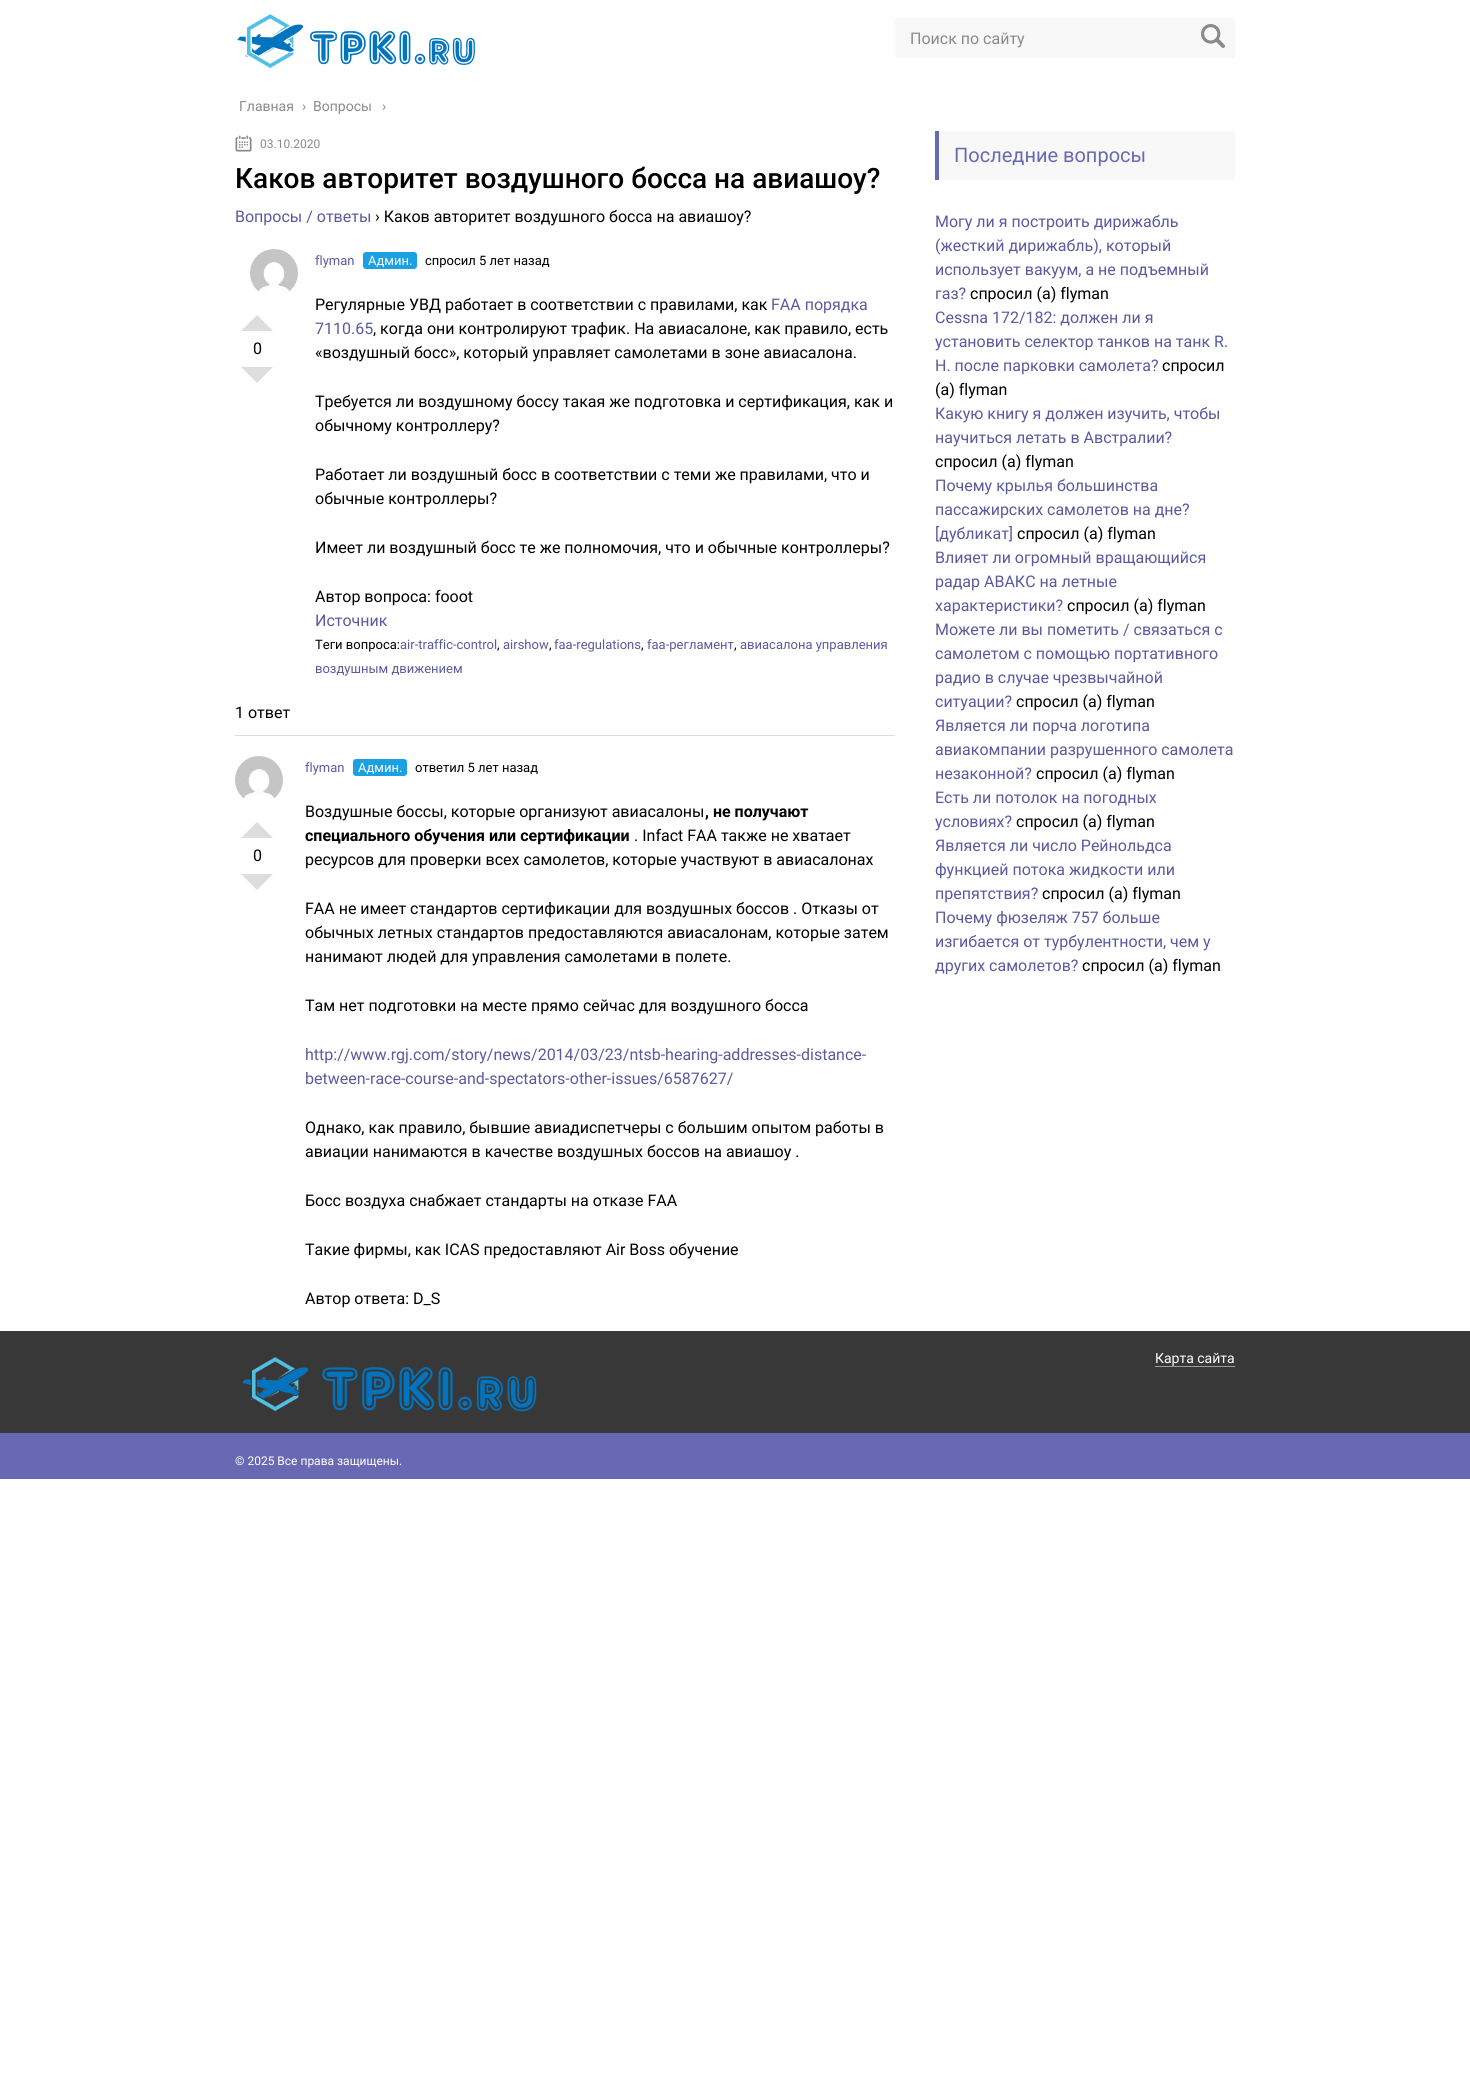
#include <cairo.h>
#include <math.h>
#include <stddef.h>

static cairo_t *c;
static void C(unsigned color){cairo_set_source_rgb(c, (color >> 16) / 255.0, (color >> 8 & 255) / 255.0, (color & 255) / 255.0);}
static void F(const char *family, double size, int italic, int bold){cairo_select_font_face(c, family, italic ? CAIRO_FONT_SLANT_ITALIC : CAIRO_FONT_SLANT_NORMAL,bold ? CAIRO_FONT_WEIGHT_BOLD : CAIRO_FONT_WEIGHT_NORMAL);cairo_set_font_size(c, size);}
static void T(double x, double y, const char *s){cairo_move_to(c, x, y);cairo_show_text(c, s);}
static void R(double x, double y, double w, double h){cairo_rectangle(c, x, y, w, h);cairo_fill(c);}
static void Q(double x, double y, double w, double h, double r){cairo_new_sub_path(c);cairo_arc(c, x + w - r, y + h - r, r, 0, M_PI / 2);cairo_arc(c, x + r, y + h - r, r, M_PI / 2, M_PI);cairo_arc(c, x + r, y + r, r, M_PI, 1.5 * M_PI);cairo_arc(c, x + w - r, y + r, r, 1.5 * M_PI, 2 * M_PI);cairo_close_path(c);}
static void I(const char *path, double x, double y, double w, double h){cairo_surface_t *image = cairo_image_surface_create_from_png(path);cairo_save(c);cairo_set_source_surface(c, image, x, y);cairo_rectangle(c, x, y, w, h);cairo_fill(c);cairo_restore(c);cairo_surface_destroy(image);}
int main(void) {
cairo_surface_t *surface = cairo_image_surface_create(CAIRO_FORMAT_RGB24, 1470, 2089);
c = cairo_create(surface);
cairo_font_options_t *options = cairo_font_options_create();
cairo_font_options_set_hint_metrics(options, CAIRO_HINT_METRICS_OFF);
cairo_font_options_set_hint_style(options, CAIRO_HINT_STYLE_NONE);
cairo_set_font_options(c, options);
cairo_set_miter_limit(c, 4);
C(0xffffff);
cairo_paint(c);
I("1.png",237,14,238,55);
C(0xf8f8f8);
R(895,18,340,40);
F("Roboto",16,0,0);
C(0x8a8a8a);
T(910,44,"Поиск по сайту");
I("2.png",1201,24,24,24);
F("Roboto",14,0,0);
T(239,111,"Главная");
T(302,111,"›");
T(313,111,"Вопросы");
T(382,111,"›");
I("3.png",235,135,17,17);
F("Roboto",12,0,0);
T(260,148,"03.10.2020");
F("Roboto Medium",28,0,0);
C(0x000000);
T(235,188,"Каков авторитет воздушного босса на авиашоу?");
F("Roboto",16,0,0);
C(0x5a5aa1);
T(235,222,"Вопросы / ответы");
C(0x000000);
T(375,222,"› Каков авторитет воздушного босса на авиашоу?");
I("4.png",250,249,48,45);
F("Roboto",13,0,0);
C(0x5a5aa1);
T(315,265,"flyman");
C(0x1ba1e2);
Q(363,252,54,17,3);
cairo_fill(c);
C(0xffffff);
T(368,265,"Админ.");
C(0x000000);
T(425,265,"спросил 5 лет назад");
C(0xdddddd);
cairo_new_path(c);
cairo_move_to(c,273,331);
cairo_line_to(c,241,331);
cairo_line_to(c,257,315);
cairo_close_path(c);
cairo_fill(c);
F("Roboto",16,0,0);
C(0x000000);
T(253,354,"0");
C(0xdddddd);
cairo_new_path(c);
cairo_move_to(c,241,367);
cairo_line_to(c,273,367);
cairo_line_to(c,257,383);
cairo_close_path(c);
cairo_fill(c);
C(0x000000);
T(315,310,"Регулярные УВД работает в соответствии с правилами, как");
C(0x5a5aa1);
T(771,310,"FAA порядка");
T(315,334,"7110.65");
C(0x000000);
T(373,334,", когда они контролируют трафик. На авиасалоне, как правило, есть");
T(315,358,"«воздушный босс», который управляет самолетами в зоне авиасалона.");
T(315,407,"Требуется ли воздушному боссу такая же подготовка и сертификация, как и");
T(315,431,"обычному контроллеру?");
T(315,480,"Работает ли воздушный босс в соответствии с теми же правилами, что и");
T(315,504,"обычные контроллеры?");
T(315,553,"Имеет ли воздушный босс те же полномочия, что и обычные контроллеры?");
T(315,602,"Автор вопроса: fooot");
C(0x5a5aa1);
T(315,626,"Источник");
F("Roboto",13,0,0);
C(0x000000);
T(315,649,"Теги вопроса:");
C(0x5a5aa1);
T(400,649,"air-traffic-control");
C(0x000000);
T(497,649,",");
C(0x5a5aa1);
T(503,649,"airshow");
C(0x000000);
T(549,649,",");
C(0x5a5aa1);
T(554,649,"faa-regulations");
C(0x000000);
T(641,649,",");
C(0x5a5aa1);
T(647,649,"faa-регламент");
C(0x000000);
T(734,649,",");
C(0x5a5aa1);
T(740,649,"авиасалона управления");
T(315,673,"воздушным движением");
F("Roboto",16,0,0);
C(0x000000);
T(235,718,"1 ответ");
C(0xdddddd);
R(235,735,660,1);
I("5.png",235,756,48,45);
F("Roboto",13,0,0);
C(0x5a5aa1);
T(305,772,"flyman");
C(0x1ba1e2);
Q(353,759,54,17,3);
cairo_fill(c);
C(0xffffff);
T(358,772,"Админ.");
C(0x000000);
T(415,772,"ответил 5 лет назад");
C(0xdddddd);
cairo_new_path(c);
cairo_move_to(c,273,838);
cairo_line_to(c,241,838);
cairo_line_to(c,257,822);
cairo_close_path(c);
cairo_fill(c);
F("Roboto",16,0,0);
C(0x000000);
T(253,861,"0");
C(0xdddddd);
cairo_new_path(c);
cairo_move_to(c,241,874);
cairo_line_to(c,273,874);
cairo_line_to(c,257,890);
cairo_close_path(c);
cairo_fill(c);
C(0x000000);
T(305,817,"Воздушные боссы, которые организуют авиасалоны");
F("Roboto",16,0,1);
T(705,817,", не получают");
T(305,841,"специального обучения или сертификации");
F("Roboto",16,0,0);
T(634,841,". Infact FAA также не хватает");
T(305,865,"ресурсов для проверки всех самолетов, которые участвуют в авиасалонах");
T(305,914,"FAA не имеет стандартов сертификации для воздушных боссов . Отказы от");
T(305,938,"обычных летных стандартов предоставляются авиасалонам, которые затем");
T(305,962,"нанимают людей для управления самолетами в полете.");
T(305,1011,"Там нет подготовки на месте прямо сейчас для воздушного босса");
C(0x5a5aa1);
T(305,1060,"http://www.rgj.com/story/news/2014/03/23/ntsb-hearing-addresses-distance-");
T(305,1084,"between-race-course-and-spectators-other-issues/6587627/");
C(0x000000);
T(305,1133,"Однако, как правило, бывшие авиадиспетчеры с большим опытом работы в");
T(305,1157,"авиации нанимаются в качестве воздушных боссов на авиашоу .");
T(305,1206,"Босс воздуха снабжает стандарты на отказе FAA");
T(305,1255,"Такие фирмы, как ICAS предоставляют Air Boss обучение");
T(305,1304,"Автор ответа: D_S");
C(0xf8f8f8);
R(939,131,296,49);
C(0x6969b3);
R(935,131,4,49);
F("Roboto",20,0,0);
T(954,162,"Последние вопросы");
F("Roboto",16,0,0);
C(0x5a5aa1);
T(935,227,"Могу ли я построить дирижабль");
T(935,251,"(жесткий дирижабль), который");
T(935,275,"использует вакуум, а не подъемный");
T(935,299,"газ?");
C(0x000000);
T(970,299,"спросил (а) flyman");
C(0x5a5aa1);
T(935,323,"Cessna 172/182: должен ли я");
T(935,347,"установить селектор танков на танк R.");
T(935,371,"H. после парковки самолета?");
C(0x000000);
T(1162,371,"спросил");
T(935,395,"(а) flyman");
C(0x5a5aa1);
T(935,419,"Какую книгу я должен изучить, чтобы");
T(935,443,"научиться летать в Австралии?");
C(0x000000);
T(935,467,"спросил (а) flyman");
C(0x5a5aa1);
T(935,491,"Почему крылья большинства");
T(935,515,"пассажирских самолетов на дне?");
T(935,539,"[дубликат]");
C(0x000000);
T(1017,539,"спросил (а) flyman");
C(0x5a5aa1);
T(935,563,"Влияет ли огромный вращающийся");
T(935,587,"радар АВАКС на летные");
T(935,611,"характеристики?");
C(0x000000);
T(1067,611,"спросил (а) flyman");
C(0x5a5aa1);
T(935,635,"Можете ли вы пометить / связаться с");
T(935,659,"самолетом с помощью портативного");
T(935,683,"радио в случае чрезвычайной");
T(935,707,"ситуации?");
C(0x000000);
T(1016,707,"спросил (а) flyman");
C(0x5a5aa1);
T(935,731,"Является ли порча логотипа");
T(935,755,"авиакомпании разрушенного самолета");
T(935,779,"незаконной?");
C(0x000000);
T(1036,779,"спросил (а) flyman");
C(0x5a5aa1);
T(935,803,"Есть ли потолок на погодных");
T(935,827,"условиях?");
C(0x000000);
T(1016,827,"спросил (а) flyman");
C(0x5a5aa1);
T(935,851,"Является ли число Рейнольдса");
T(935,875,"функцией потока жидкости или");
T(935,899,"препятствия?");
C(0x000000);
T(1042,899,"спросил (а) flyman");
C(0x5a5aa1);
T(935,923,"Почему фюзеляж 757 больше");
T(935,947,"изгибается от турбулентности, чем у");
T(935,971,"других самолетов?");
C(0x000000);
T(1082,971,"спросил (а) flyman");
C(0x383838);
R(0,1331,1470,102);
I("6.png",242,1357,295,55);
F("Roboto",14,0,0);
C(0xffffff);
T(1155,1363,"Карта сайта");
C(0x9c9c9c);
R(1155,1366,80,1);
C(0x6969b3);
R(0,1433,1470,46);
F("Roboto",12,0,0);
C(0xffffff);
T(235,1465,"© 2025 Все права защищены.");
cairo_surface_write_to_png(surface, "o.png");
cairo_font_options_destroy(options);
cairo_destroy(c);
cairo_surface_destroy(surface);
return 0;
}
